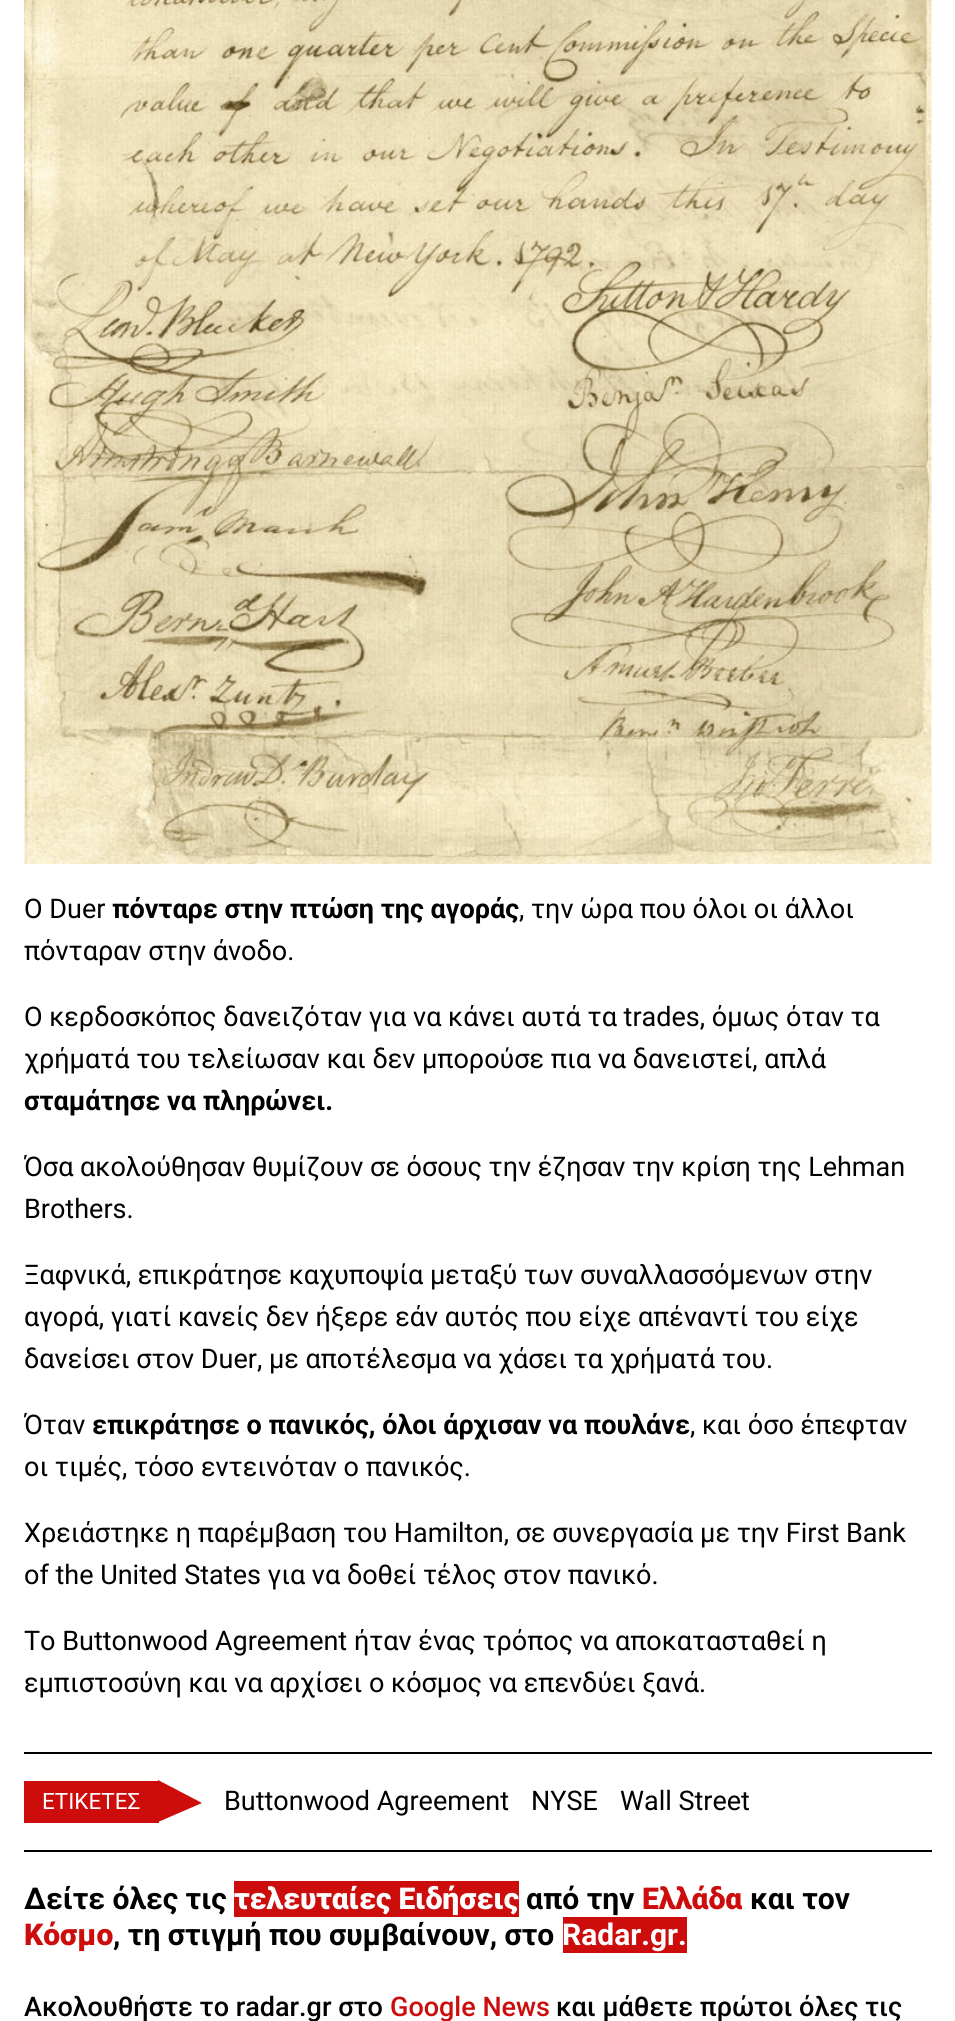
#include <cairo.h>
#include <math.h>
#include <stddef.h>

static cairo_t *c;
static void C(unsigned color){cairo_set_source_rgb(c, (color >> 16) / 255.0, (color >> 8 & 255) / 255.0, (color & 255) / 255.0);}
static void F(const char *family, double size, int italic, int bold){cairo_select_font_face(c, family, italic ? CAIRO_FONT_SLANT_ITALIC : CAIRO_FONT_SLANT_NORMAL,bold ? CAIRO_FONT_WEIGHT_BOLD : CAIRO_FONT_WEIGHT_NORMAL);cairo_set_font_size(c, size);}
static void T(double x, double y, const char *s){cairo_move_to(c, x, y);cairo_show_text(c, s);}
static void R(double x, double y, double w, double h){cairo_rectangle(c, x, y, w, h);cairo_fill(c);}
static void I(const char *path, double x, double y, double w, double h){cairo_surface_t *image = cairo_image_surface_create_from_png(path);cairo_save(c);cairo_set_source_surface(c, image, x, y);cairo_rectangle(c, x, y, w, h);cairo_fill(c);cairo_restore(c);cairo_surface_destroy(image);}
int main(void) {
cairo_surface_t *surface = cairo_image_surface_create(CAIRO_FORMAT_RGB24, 955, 2021);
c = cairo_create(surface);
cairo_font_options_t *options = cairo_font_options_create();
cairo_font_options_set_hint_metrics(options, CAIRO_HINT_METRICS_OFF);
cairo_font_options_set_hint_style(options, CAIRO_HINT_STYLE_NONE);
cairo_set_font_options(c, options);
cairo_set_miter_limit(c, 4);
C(0xffffff);
cairo_paint(c);
I("1.png",24,0,908,864);
F("Roboto",27,0,0);
C(0x000000);
T(24,918,"Ο Duer");
F("Roboto",27,0,1);
T(112,918,"πόνταρε στην πτώση της αγοράς");
F("Roboto",27,0,0);
T(519,918,", την ώρα που όλοι οι άλλοι");
T(24,960,"πόνταραν στην άνοδο.");
T(24,1026,"Ο κερδοσκόπος δανειζόταν για να κάνει αυτά τα trades, όμως όταν τα");
T(24,1068,"χρήματά του τελείωσαν και δεν μπορούσε πια να δανειστεί, απλά");
F("Roboto",27,0,1);
T(24,1110,"σταμάτησε να πληρώνει.");
F("Roboto",27,0,0);
T(24,1176,"Όσα ακολούθησαν θυμίζουν σε όσους την έζησαν την κρίση της Lehman");
T(24,1218,"Brothers.");
T(24,1284,"Ξαφνικά, επικράτησε καχυποψία μεταξύ των συναλλασσόμενων στην");
T(24,1326,"αγορά, γιατί κανείς δεν ήξερε εάν αυτός που είχε απέναντί του είχε");
T(24,1368,"δανείσει στον Duer, με αποτέλεσμα να χάσει τα χρήματά του.");
T(24,1434,"Όταν");
F("Roboto",27,0,1);
T(92,1434,"επικράτησε ο πανικός, όλοι άρχισαν να πουλάνε");
F("Roboto",27,0,0);
T(690,1434,", και όσο έπεφταν");
T(24,1476,"οι τιμές, τόσο εντεινόταν ο πανικός.");
T(24,1542,"Χρειάστηκε η παρέμβαση του Hamilton, σε συνεργασία με την First Bank");
T(24,1584,"of the United States για να δοθεί τέλος στον πανικό.");
T(24,1650,"Το Buttonwood Agreement ήταν ένας τρόπος να αποκατασταθεί η");
T(24,1692,"εμπιστοσύνη και να αρχίσει ο κόσμος να επενδύει ξανά.");
R(24,1752,908,2);
R(24,1850,908,2);
C(0xcc0d0c);
cairo_new_path(c);
cairo_move_to(c,158,1822);
cairo_line_to(c,158,1780);
cairo_line_to(c,202,1803);
cairo_close_path(c);
cairo_fill(c);
R(24,1781,135,42);
F("Roboto",22.5,0,0);
C(0xffffff);
T(42,1809,"ΕΤΙΚΕΤΕΣ");
F("Roboto",27,0,0);
C(0x000000);
T(224,1810,"Buttonwood Agreement");
T(531,1810,"NYSE");
T(620,1810,"Wall Street");
F("Roboto",30,0,1);
T(24,1909,"Δείτε όλες τις");
C(0xcc0d0c);
R(234,1881,285,36);
F("Roboto Black",30,0,0);
C(0xffffff);
T(234,1909,"τελευταίες Ειδήσεις");
F("Roboto",30,0,1);
C(0x000000);
T(526,1909,"από την");
F("Roboto Black",30,0,0);
C(0xcc0d0c);
T(642,1909,"Ελλάδα");
F("Roboto",30,0,1);
C(0x000000);
T(750,1909,"και τον");
F("Roboto Black",30,0,0);
C(0xcc0d0c);
T(24,1945,"Κόσμο");
F("Roboto",30,0,1);
C(0x000000);
T(113,1945,", τη στιγμή που συμβαίνουν, στο");
C(0xcc0d0c);
R(563,1917,124,36);
C(0xffffff);
T(562,1945,"Radar.gr.");
F("Roboto Medium",27,0,0);
C(0x000000);
T(24,2016,"Ακολουθήστε το radar.gr στο");
C(0xcc0d0c);
T(390,2016,"Google News");
C(0x000000);
T(556,2016,"και μάθετε πρώτοι όλες τις");
cairo_surface_write_to_png(surface, "o.png");
cairo_font_options_destroy(options);
cairo_destroy(c);
cairo_surface_destroy(surface);
return 0;
}
